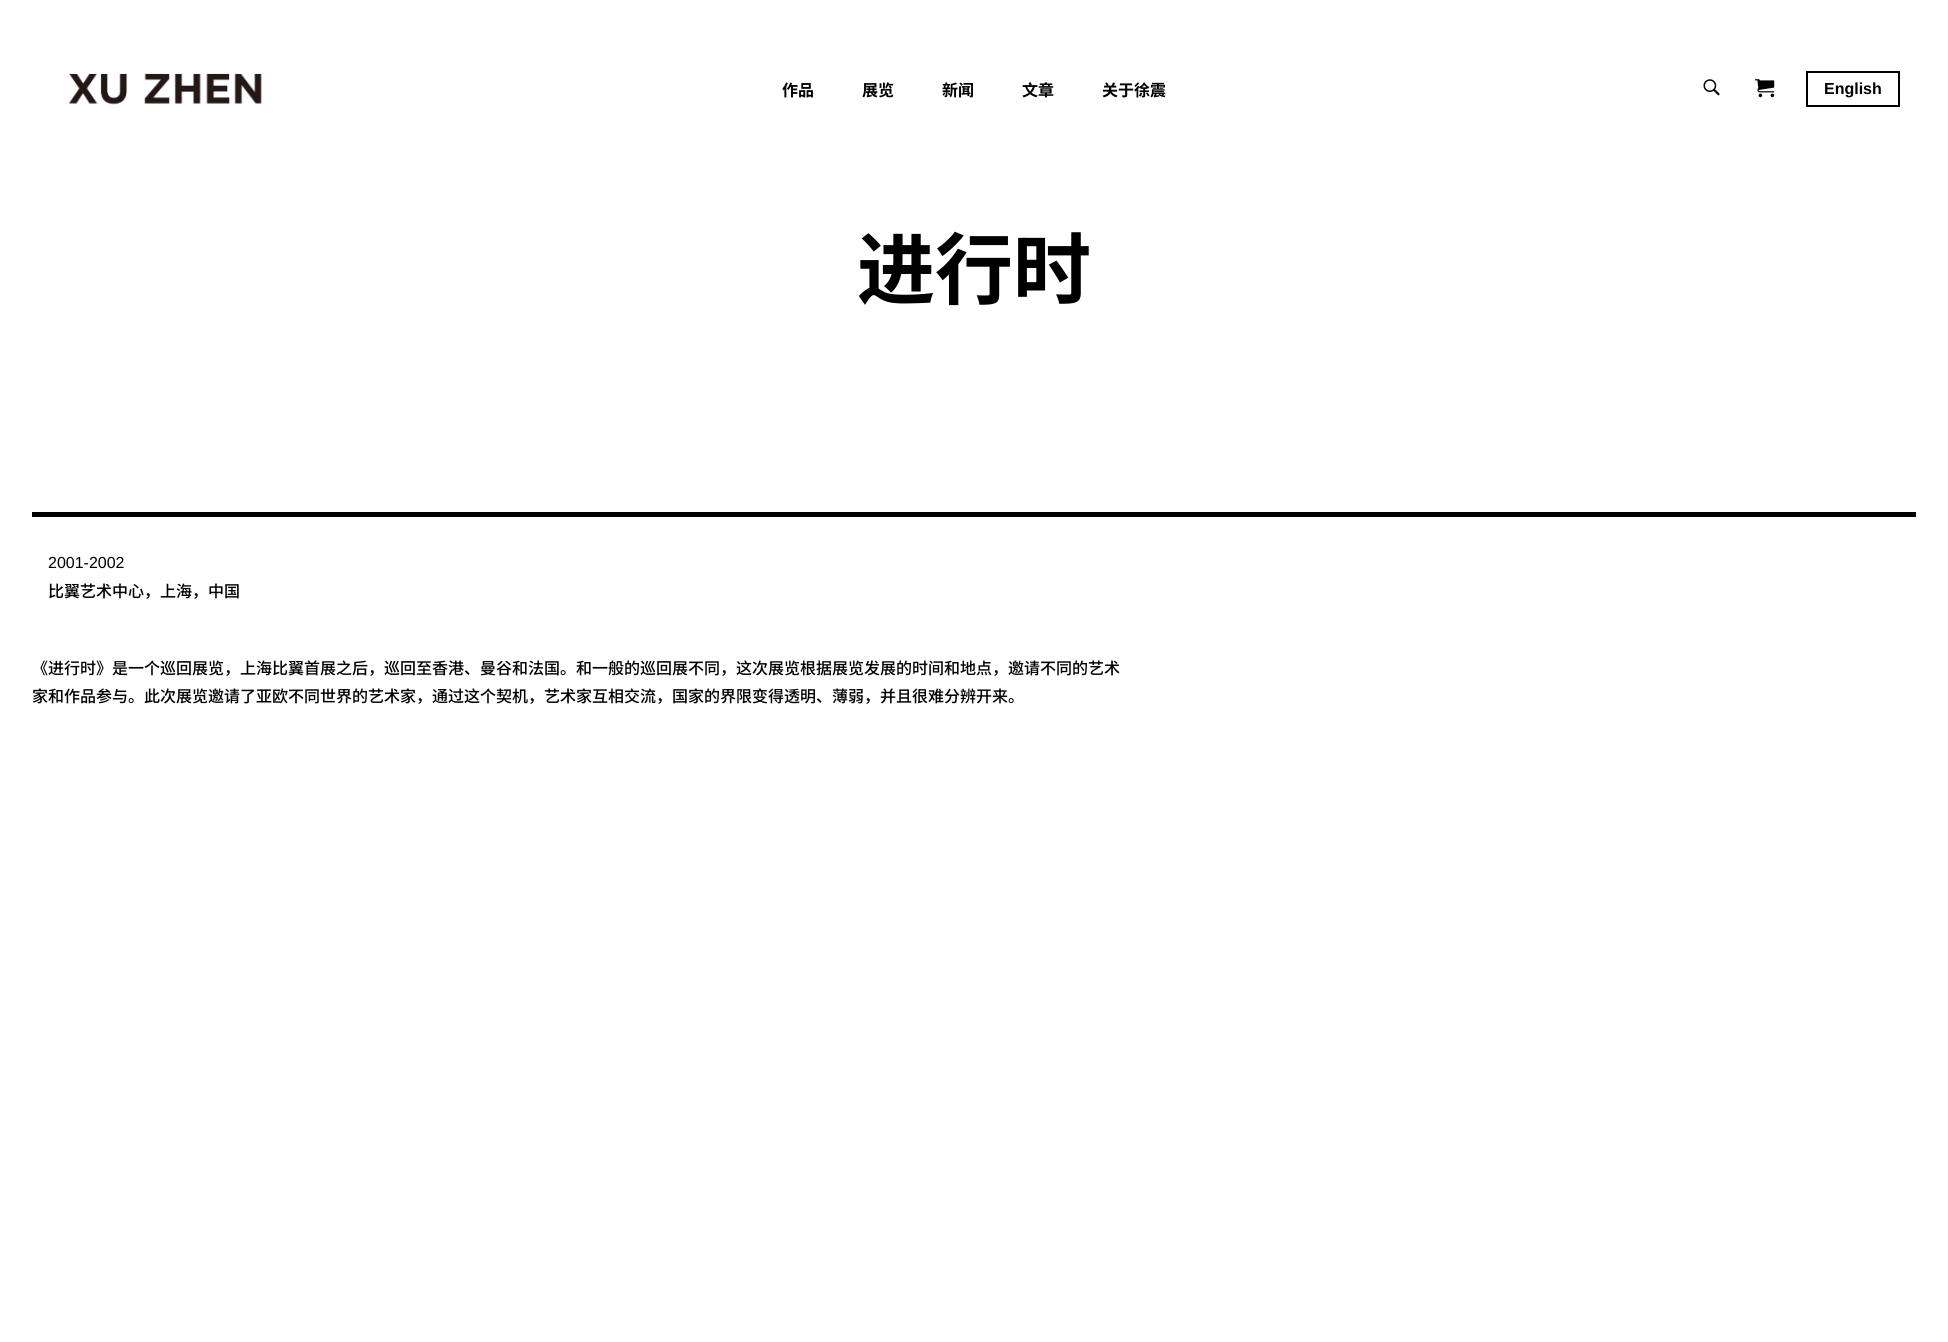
#include <cairo.h>
#include <math.h>
#include <stddef.h>

static cairo_t *c;
static void C(unsigned color){cairo_set_source_rgb(c, (color >> 16) / 255.0, (color >> 8 & 255) / 255.0, (color & 255) / 255.0);}
static void F(const char *family, double size, int italic, int bold){cairo_select_font_face(c, family, italic ? CAIRO_FONT_SLANT_ITALIC : CAIRO_FONT_SLANT_NORMAL,bold ? CAIRO_FONT_WEIGHT_BOLD : CAIRO_FONT_WEIGHT_NORMAL);cairo_set_font_size(c, size);}
static void T(double x, double y, const char *s){cairo_move_to(c, x, y);cairo_show_text(c, s);}
static void R(double x, double y, double w, double h){cairo_rectangle(c, x, y, w, h);cairo_fill(c);}
static void I(const char *path, double x, double y, double w, double h){cairo_surface_t *image = cairo_image_surface_create_from_png(path);cairo_save(c);cairo_set_source_surface(c, image, x, y);cairo_rectangle(c, x, y, w, h);cairo_fill(c);cairo_restore(c);cairo_surface_destroy(image);}
int main(void) {
cairo_surface_t *surface = cairo_image_surface_create(CAIRO_FORMAT_RGB24, 1948, 1342);
c = cairo_create(surface);
cairo_font_options_t *options = cairo_font_options_create();
cairo_font_options_set_hint_metrics(options, CAIRO_HINT_METRICS_OFF);
cairo_font_options_set_hint_style(options, CAIRO_HINT_STYLE_NONE);
cairo_set_font_options(c, options);
cairo_set_miter_limit(c, 4);
C(0xffffff);
cairo_paint(c);
I("1.png",68,73,194,32);
F("Noto Sans SC",16,0,1);
C(0x000000);
T(782,96,"作品");
T(862,96,"展览");
T(942,96,"新闻");
T(1022,96,"文章");
T(1102,96,"关于徐震");
I("2.png",1703,79,17,17);
I("3.png",1755,79,20,19);
cairo_rectangle(c,1807,72,92,34);
cairo_stroke(c);
F("Liberation Sans",16,0,1);
T(1824,94,"English");
F("Noto Sans SC",78,0,1);
T(857,298,"进行时");
R(32,512,1884,5);
F("Liberation Sans",16,0,0);
T(48,568,"2001-2002");
F("Noto Sans SC Medium",16,0,0);
T(48,597,"比翼艺术中心，上海，中国");
T(32,674,"《进行时》是一个巡回展览，上海比翼首展之后，巡回至香港、曼谷和法国。和一般的巡回展不同，这次展览根据展览发展的时间和地点，邀请不同的艺术");
T(32,702,"家和作品参与。此次展览邀请了亚欧不同世界的艺术家，通过这个契机，艺术家互相交流，国家的界限变得透明、薄弱，并且很难分辨开来。");
cairo_surface_write_to_png(surface, "o.png");
cairo_font_options_destroy(options);
cairo_destroy(c);
cairo_surface_destroy(surface);
return 0;
}
